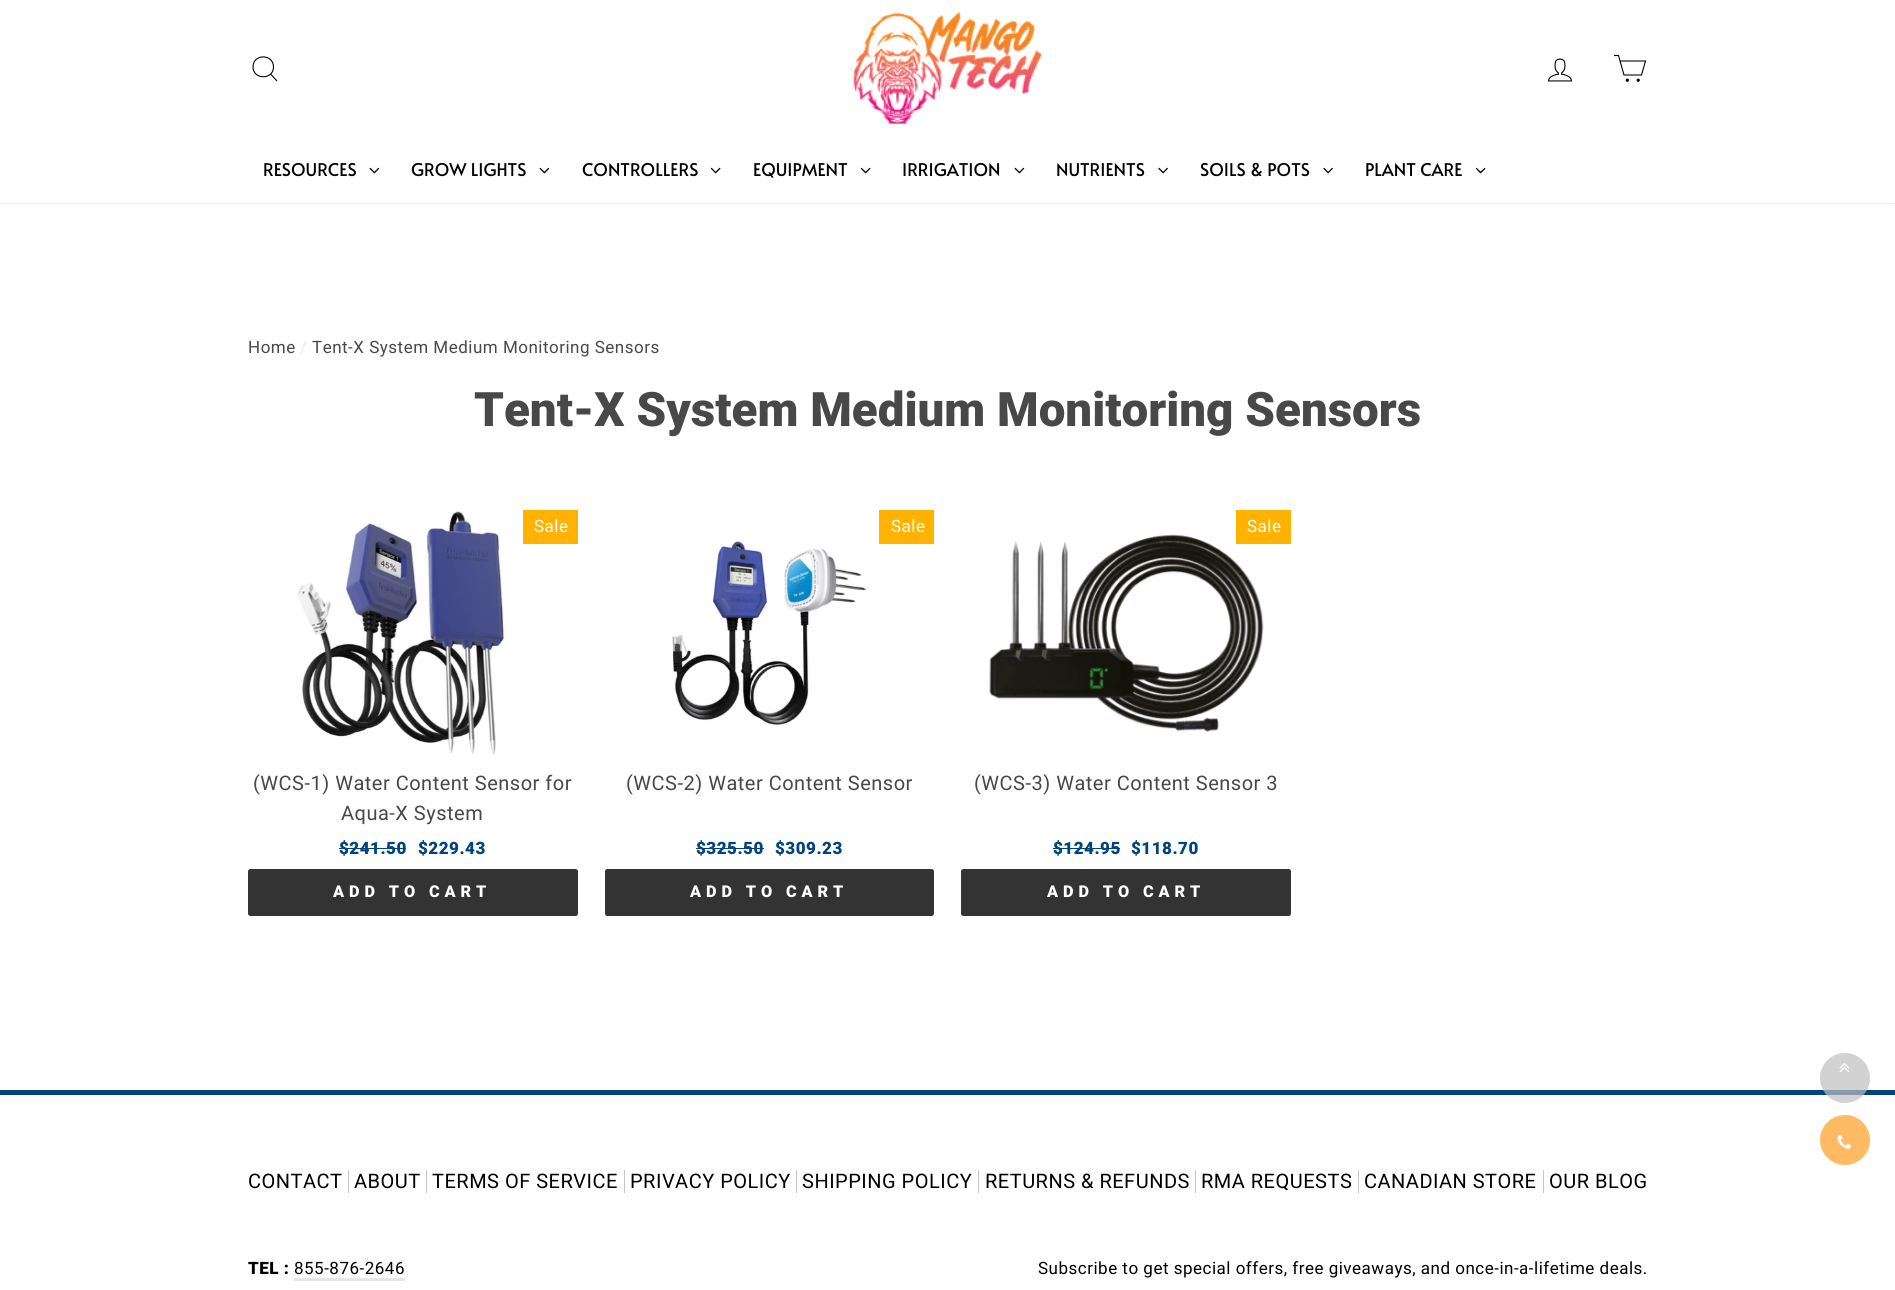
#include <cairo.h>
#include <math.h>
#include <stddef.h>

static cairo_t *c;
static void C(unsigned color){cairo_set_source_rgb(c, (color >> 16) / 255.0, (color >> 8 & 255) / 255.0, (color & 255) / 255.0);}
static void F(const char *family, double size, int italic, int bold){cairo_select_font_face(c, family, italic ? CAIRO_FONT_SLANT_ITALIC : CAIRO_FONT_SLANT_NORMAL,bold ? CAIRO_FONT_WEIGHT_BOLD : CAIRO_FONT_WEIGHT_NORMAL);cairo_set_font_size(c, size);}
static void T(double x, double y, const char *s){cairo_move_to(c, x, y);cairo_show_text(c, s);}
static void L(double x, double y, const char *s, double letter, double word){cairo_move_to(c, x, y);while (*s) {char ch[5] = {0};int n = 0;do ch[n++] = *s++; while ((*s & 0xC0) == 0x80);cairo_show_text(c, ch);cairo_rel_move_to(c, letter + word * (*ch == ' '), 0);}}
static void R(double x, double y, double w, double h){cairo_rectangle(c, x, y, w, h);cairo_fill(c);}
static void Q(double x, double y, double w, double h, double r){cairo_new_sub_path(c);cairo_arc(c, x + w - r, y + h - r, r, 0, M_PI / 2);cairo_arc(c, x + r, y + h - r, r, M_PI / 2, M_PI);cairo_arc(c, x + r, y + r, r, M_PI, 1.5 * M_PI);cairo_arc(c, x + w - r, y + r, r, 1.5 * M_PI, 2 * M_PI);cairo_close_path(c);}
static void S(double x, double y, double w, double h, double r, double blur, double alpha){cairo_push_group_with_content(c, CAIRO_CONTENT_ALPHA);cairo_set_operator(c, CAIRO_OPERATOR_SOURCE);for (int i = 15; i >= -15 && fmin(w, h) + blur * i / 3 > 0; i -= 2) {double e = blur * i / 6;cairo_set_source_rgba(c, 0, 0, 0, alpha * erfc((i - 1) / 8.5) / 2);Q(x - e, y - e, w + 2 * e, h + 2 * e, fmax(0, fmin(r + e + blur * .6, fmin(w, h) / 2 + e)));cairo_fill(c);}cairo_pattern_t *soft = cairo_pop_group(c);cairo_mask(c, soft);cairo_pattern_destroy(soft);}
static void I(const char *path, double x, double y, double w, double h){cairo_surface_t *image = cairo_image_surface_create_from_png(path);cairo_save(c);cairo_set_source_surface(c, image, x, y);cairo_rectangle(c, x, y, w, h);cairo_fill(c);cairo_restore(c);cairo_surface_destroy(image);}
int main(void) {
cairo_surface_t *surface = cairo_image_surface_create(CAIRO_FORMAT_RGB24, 1895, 1290);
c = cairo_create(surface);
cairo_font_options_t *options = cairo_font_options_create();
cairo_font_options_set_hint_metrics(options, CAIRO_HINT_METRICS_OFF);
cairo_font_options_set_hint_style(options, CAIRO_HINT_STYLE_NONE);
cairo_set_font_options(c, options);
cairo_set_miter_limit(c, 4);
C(0xffffff);
cairo_paint(c);
C(0x000000);
S(0,0,1895,203,0,.5,.2);
C(0xffffff);
R(0,0,1895,203);
cairo_new_path(c);
cairo_move_to(c,273.5,67);
cairo_curve_to(c,273.5,80,253,80,253,67);
cairo_curve_to(c,253,53.5,273.5,53.5,273.5,67);
cairo_close_path(c);
cairo_move_to(c,277,81);
cairo_line_to(c,270.5,74);
C(0x000000);
cairo_set_line_width(c,1.1);
cairo_stroke(c);
I("1.png",853,12,189,112);
I("2.png",1548,58,24,24);
cairo_new_path(c);
cairo_move_to(c,1620,61);
cairo_line_to(c,1645.5,61);
cairo_line_to(c,1641.5,75);
cairo_line_to(c,1624,75);
cairo_line_to(c,1618.5,55.5);
cairo_line_to(c,1614,55.5);
cairo_stroke(c);
cairo_arc(c,1627.3,80.2,1.1,0,2 * M_PI);
cairo_fill_preserve(c);
cairo_stroke(c);
cairo_arc(c,1638.2,80.2,1.1,0,2 * M_PI);
cairo_fill_preserve(c);
cairo_stroke(c);
F("Alata",17.5,0,0);
T(263,176,"RESOURCES");
I("3.png",369,167,11,7);
T(411,176,"GROW LIGHTS");
I("3.png",539,167,11,7);
T(582,176,"CONTROLLERS");
I("4.png",710,167,11,7);
T(753,176,"EQUIPMENT");
I("4.png",860,167,11,7);
T(902,176,"IRRIGATION");
I("3.png",1014,167,11,7);
T(1056,176,"NUTRIENTS");
I("5.png",1158,167,10,7);
T(1200,176,"SOILS & POTS");
I("5.png",1323,167,10,7);
T(1365,176,"PLANT CARE");
I("4.png",1475,167,11,7);
F("Roboto",17,0,0);
C(0x484848);
L(248,353,"Home",.5,0);
C(0xe8e8e1);
L(300,353,"/",.5,0);
C(0x484848);
L(312,353,"Tent-X System Medium Monitoring Sensors",.5,0);
F("Roboto Black",47.5,0,0);
T(474,426,"Tent-X System Medium Monitoring Sensors");
C(0xffb200);
R(523,510,55,34);
F("Roboto",17,0,0);
C(0xffffff);
L(534,532,"Sale",.5,0);
I("6.png",297,511,208,244);
F("Roboto",20,0,0);
C(0x484848);
L(253,790,"(WCS-1) Water Content Sensor for",.5,0);
L(341,820,"Aqua-X System",.5,0);
F("Roboto Black",17,0,0);
C(0x014380);
L(339,854,"$241.50",.5,0);
R(339,848,67,1);
L(418,854,"$229.43",.5,0);
C(0x333333);
Q(248,869,330,47,2.5);
cairo_fill(c);
F("Roboto Black",16.25,0,0);
C(0xffffff);
L(333,897,"ADD TO CART",4.9,0);
C(0xffb200);
R(879,510,55,34);
F("Roboto",17,0,0);
C(0xffffff);
L(891,532,"Sale",.5,0);
I("7.png",672,541,195,184);
F("Roboto",20,0,0);
C(0x484848);
L(626,790,"(WCS-2) Water Content Sensor",.5,0);
F("Roboto Black",17,0,0);
C(0x014380);
L(696,854,"$325.50",.5,0);
R(696,848,68,1);
L(775,854,"$309.23",.5,0);
C(0x333333);
Q(605,869,329,47,2.5);
cairo_fill(c);
F("Roboto Black",16.25,0,0);
C(0xffffff);
L(690,897,"ADD TO CART",4.9,0);
I("8.png",989,534,275,199);
C(0xffb200);
R(1236,510,55,34);
F("Roboto",17,0,0);
C(0xffffff);
L(1247,532,"Sale",.5,0);
F("Roboto",20,0,0);
C(0x484848);
L(974,790,"(WCS-3) Water Content Sensor 3",.5,0);
F("Roboto Black",17,0,0);
C(0x014380);
L(1053,854,"$124.95",.5,0);
R(1053,848,67,1);
L(1131,854,"$118.70",.5,0);
C(0x333333);
Q(961,869,330,47,2.5);
cairo_fill(c);
F("Roboto Black",16.25,0,0);
C(0xffffff);
L(1047,897,"ADD TO CART",4.9,0);
C(0x014380);
R(0,1090,1895,5);
F("Roboto",20,0,0);
C(0x000000);
L(248,1188,"CONTACT",.5,0);
C(0xc8c8c8);
R(348,1170,1,23);
C(0x000000);
L(354,1188,"ABOUT",.5,0);
C(0xc8c8c8);
R(426,1170,1,23);
C(0x000000);
L(432,1188,"TERMS OF SERVICE",.5,0);
C(0xc8c8c8);
R(624,1170,1,23);
C(0x000000);
L(630,1188,"PRIVACY POLICY",.5,0);
C(0xc8c8c8);
R(796,1170,1,23);
C(0x000000);
L(802,1188,"SHIPPING POLICY",.5,0);
C(0xc8c8c8);
R(978,1170,1,23);
C(0x000000);
L(985,1188,"RETURNS & REFUNDS",.5,0);
C(0xc8c8c8);
R(1195,1170,1,23);
C(0x000000);
L(1201,1188,"RMA REQUESTS",.5,0);
C(0xc8c8c8);
R(1358,1170,1,23);
C(0x000000);
L(1364,1188,"CANADIAN STORE",.5,0);
C(0xc8c8c8);
R(1543,1170,1,23);
C(0x000000);
L(1549,1188,"OUR BLOG",.5,0);
F("Roboto Black",17,0,0);
L(248,1274,"TEL :",.5,0);
F("Roboto",17,0,0);
L(294,1274,"855-876-2646",.5,0);
C(0xe6e6e6);
R(294,1278,111,3);
C(0x000000);
L(1038,1274,"Subscribe to get special offers, free giveaways, and once-in-a-lifetime deals.",.5,0);
cairo_set_source_rgba(c,0.749,0.749,0.749,0.7);
cairo_new_path(c);
cairo_arc(c,1845,1078,25,0,2 * M_PI);
cairo_fill(c);
I("9.png",1839,1063,11,10);
C(0xffbb64);
cairo_arc(c,1845,1140,25,0,2 * M_PI);
cairo_fill(c);
I("10.png",1837,1135,15,14);
cairo_surface_write_to_png(surface, "o.png");
cairo_font_options_destroy(options);
cairo_destroy(c);
cairo_surface_destroy(surface);
return 0;
}
